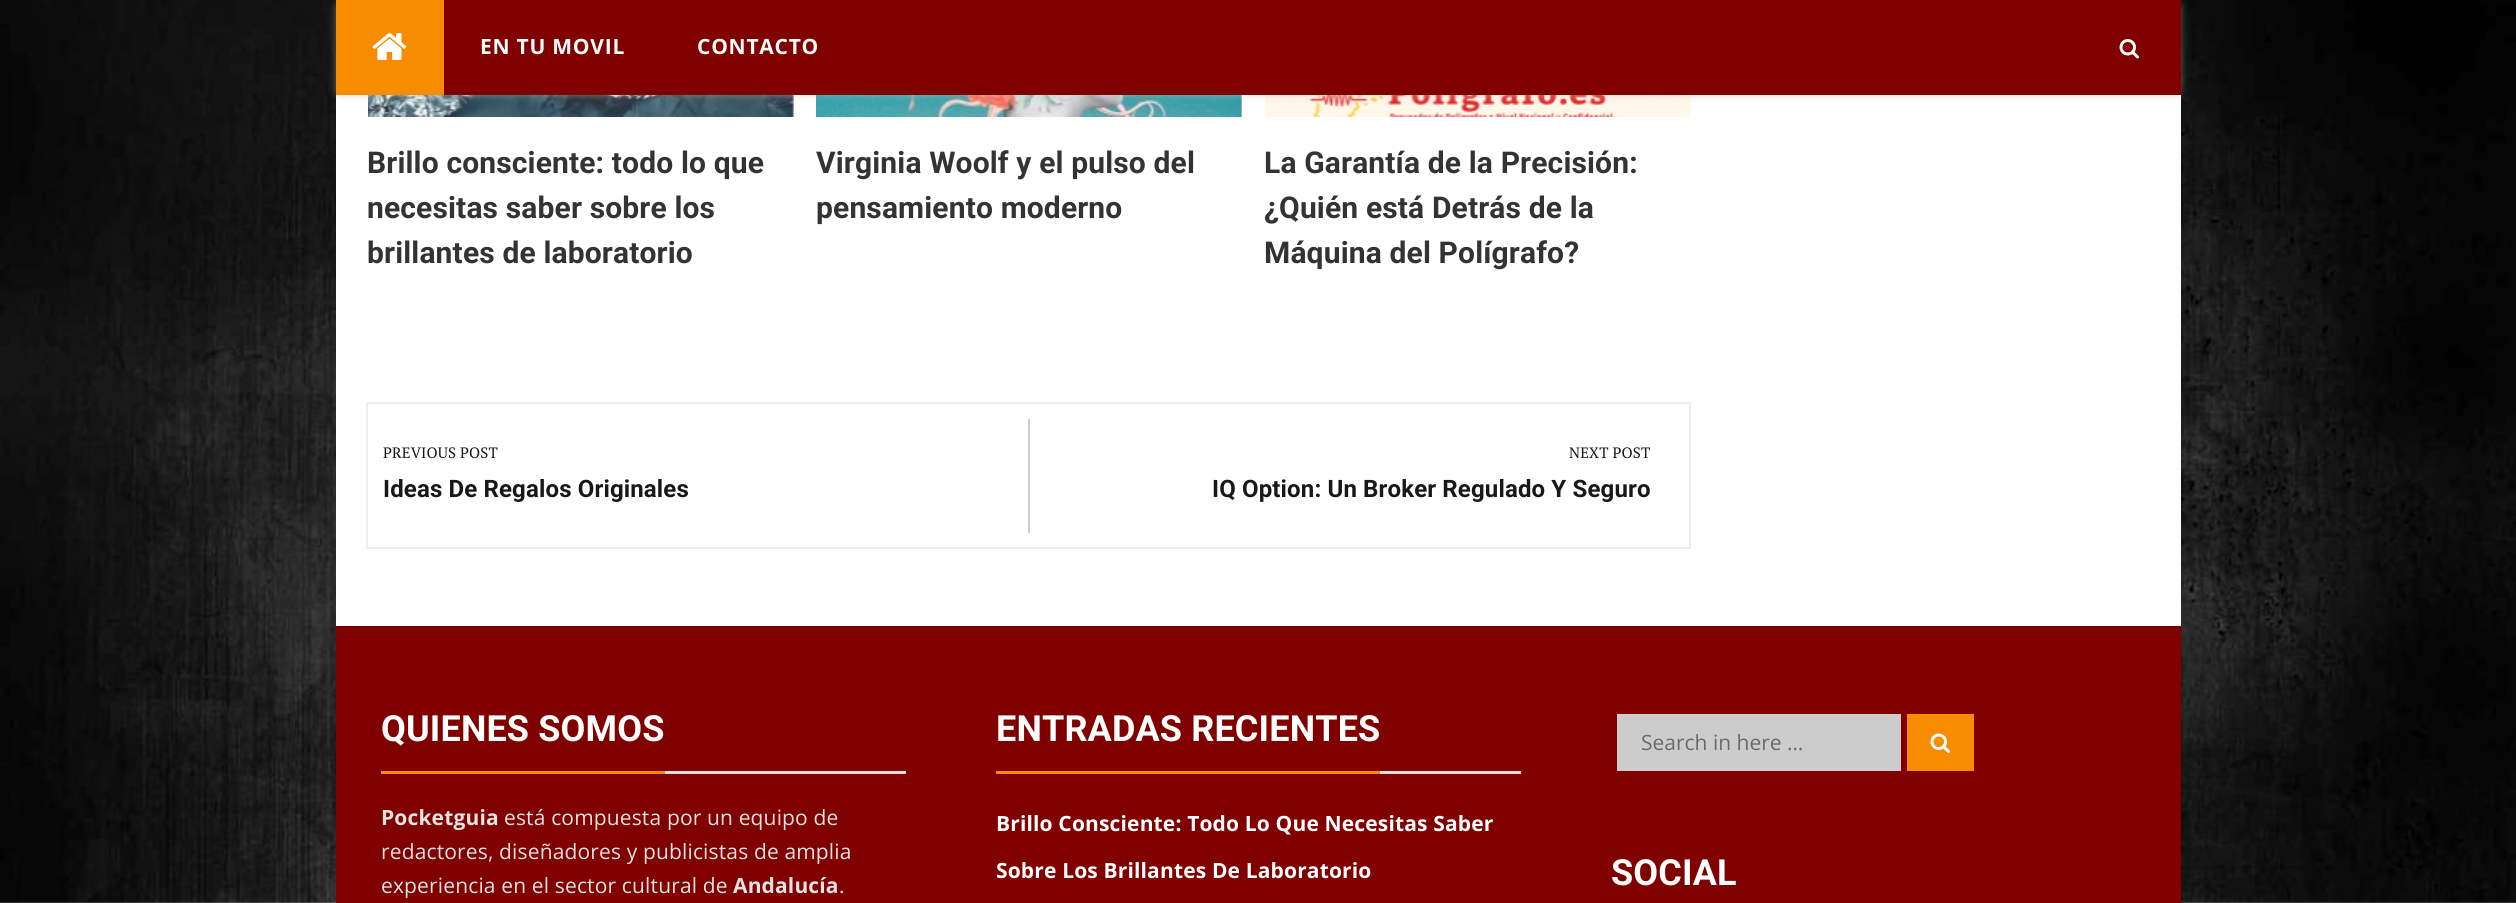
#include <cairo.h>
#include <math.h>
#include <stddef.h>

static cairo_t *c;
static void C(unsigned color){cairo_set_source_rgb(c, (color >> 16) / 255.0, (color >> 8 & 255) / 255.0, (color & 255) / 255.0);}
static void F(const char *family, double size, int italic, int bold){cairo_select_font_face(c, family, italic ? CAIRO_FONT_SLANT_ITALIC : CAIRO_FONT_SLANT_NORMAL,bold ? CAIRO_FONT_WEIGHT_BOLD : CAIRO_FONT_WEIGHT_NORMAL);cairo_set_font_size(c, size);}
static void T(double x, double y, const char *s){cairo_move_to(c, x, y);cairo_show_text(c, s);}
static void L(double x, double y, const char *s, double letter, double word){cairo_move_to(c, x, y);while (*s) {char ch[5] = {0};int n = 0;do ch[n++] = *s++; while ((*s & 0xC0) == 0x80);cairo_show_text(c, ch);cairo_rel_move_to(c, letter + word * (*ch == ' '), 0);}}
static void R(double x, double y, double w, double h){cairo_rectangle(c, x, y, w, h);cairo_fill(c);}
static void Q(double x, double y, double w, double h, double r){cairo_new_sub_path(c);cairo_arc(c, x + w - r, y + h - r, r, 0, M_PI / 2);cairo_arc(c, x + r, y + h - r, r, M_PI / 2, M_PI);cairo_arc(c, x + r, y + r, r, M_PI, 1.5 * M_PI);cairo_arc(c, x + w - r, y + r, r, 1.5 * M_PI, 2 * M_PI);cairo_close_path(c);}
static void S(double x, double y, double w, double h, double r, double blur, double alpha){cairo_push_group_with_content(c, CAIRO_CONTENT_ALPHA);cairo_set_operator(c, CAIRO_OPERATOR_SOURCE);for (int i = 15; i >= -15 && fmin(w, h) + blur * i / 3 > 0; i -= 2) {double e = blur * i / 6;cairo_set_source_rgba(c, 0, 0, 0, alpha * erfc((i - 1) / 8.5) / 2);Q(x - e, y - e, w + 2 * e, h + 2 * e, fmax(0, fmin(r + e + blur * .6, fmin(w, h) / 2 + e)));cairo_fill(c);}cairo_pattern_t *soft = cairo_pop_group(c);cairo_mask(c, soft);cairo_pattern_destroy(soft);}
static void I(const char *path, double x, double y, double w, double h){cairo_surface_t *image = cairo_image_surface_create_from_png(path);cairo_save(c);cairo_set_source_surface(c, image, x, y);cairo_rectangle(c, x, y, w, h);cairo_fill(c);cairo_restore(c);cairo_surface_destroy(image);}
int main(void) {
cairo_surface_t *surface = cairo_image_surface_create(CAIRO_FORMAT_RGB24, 2516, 903);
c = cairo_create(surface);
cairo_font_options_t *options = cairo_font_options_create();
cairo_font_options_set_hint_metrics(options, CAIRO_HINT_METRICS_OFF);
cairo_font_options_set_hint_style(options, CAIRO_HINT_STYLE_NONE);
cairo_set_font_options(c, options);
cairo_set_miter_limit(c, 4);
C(0xffffff);
cairo_paint(c);
I("1.png",0,0,2516,903);
C(0x000000);
S(336,-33,1845,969,0,11,.1);
C(0xffffff);
R(336,95,1845,531);
I("4.png",368,95,426,22);
cairo_set_source_rgba(c,1,1,1,0.16);
R(368,95,426,22);
I("5.png",816,95,426,22);
R(816,95,426,22);
I("6.png",1265,95,426,22);
R(1265,95,425,22);
C(0xbebebe);
S(336,2,1845,94,6,4,.46);
C(0x800000);
R(444,0,1737,95);
C(0xf88c00);
R(336,0,108,95);
I("2.png",372,33,35,27);
F("Open Sans",21,0,1);
C(0xffffff);
L(480,54,"EN TU MOVIL",.75,0);
L(697,54,"CONTACTO",.75,0);
I("3.png",2119,39,20,20);
F("Roboto",30,0,1);
C(0x333333);
L(367,173,"Brillo consciente: todo lo que",.15,0);
L(367,218,"necesitas saber sobre los",.15,0);
L(367,263,"brillantes de laboratorio",.15,0);
L(816,173,"Virginia Woolf y el pulso del",.15,0);
L(816,218,"pensamiento moderno",.15,0);
L(1264,173,"La Garantía de la Precisión:",.15,0);
L(1264,218,"¿Quién está Detrás de la",.15,0);
L(1264,263,"Máquina del Polígrafo?",.15,0);
cairo_rectangle(c,367,403,1323,145);
C(0xeeeeee);
cairo_stroke(c);
F("PT Serif",15,0,0);
C(0x181818);
L(383,458,"PREVIOUS POST",.15,0);
F("Roboto",24,0,1);
L(383,497,"Ideas De Regalos Originales",.15,0);
C(0xcccccc);
R(1028,419,2,114);
F("PT Serif",15,0,0);
C(0x181818);
L(1569,458,"NEXT POST",.15,0);
F("Roboto",24,0,1);
L(1212,497,"IQ Option: Un Broker Regulado Y Seguro",.15,0);
C(0x800000);
R(336,628,1845,275);
C(0x730000);
R(336,626,1845,2);
F("Roboto",36,0,1);
C(0xffffff);
L(381,741,"QUIENES SOMOS",.15,0);
C(0xf88c00);
R(381,771,284,3);
C(0xdddddd);
R(665,771,241,3);
F("Open Sans",21,0,1);
C(0xe2e2e2);
L(381,825,"Pocketguia",.15,0);
F("Open Sans",21,0,0);
L(504,825,"está compuesta por un equipo de",.15,0);
L(381,859,"redactores, diseñadores y publicistas de amplia",.15,0);
L(381,893,"experiencia en el sector cultural de",.15,0);
F("Open Sans",21,0,1);
L(733,893,"Andalucía",.15,0);
F("Open Sans",21,0,0);
L(839,893,".",.15,0);
F("Roboto",36,0,1);
C(0xffffff);
L(996,741,"ENTRADAS RECIENTES",.15,0);
C(0xf88c00);
R(996,771,384,3);
C(0xdddddd);
R(1380,771,141,3);
F("Open Sans",21,0,1);
C(0xffffff);
L(996,831,"Brillo Consciente: Todo Lo Que Necesitas Saber",.15,0);
L(996,878,"Sobre Los Brillantes De Laboratorio",.15,0);
C(0xcccccc);
R(1617,714,284,57);
F("Open Sans",21,0,0);
C(0x6a6a6a);
T(1641,750,"Search in here …");
C(0xf88c00);
R(1907,714,67,57);
I("7.png",1930,733,20,20);
F("Roboto",36,0,1);
C(0xffffff);
L(1611,885,"SOCIAL",.15,0);
cairo_surface_write_to_png(surface, "o.png");
cairo_font_options_destroy(options);
cairo_destroy(c);
cairo_surface_destroy(surface);
return 0;
}
